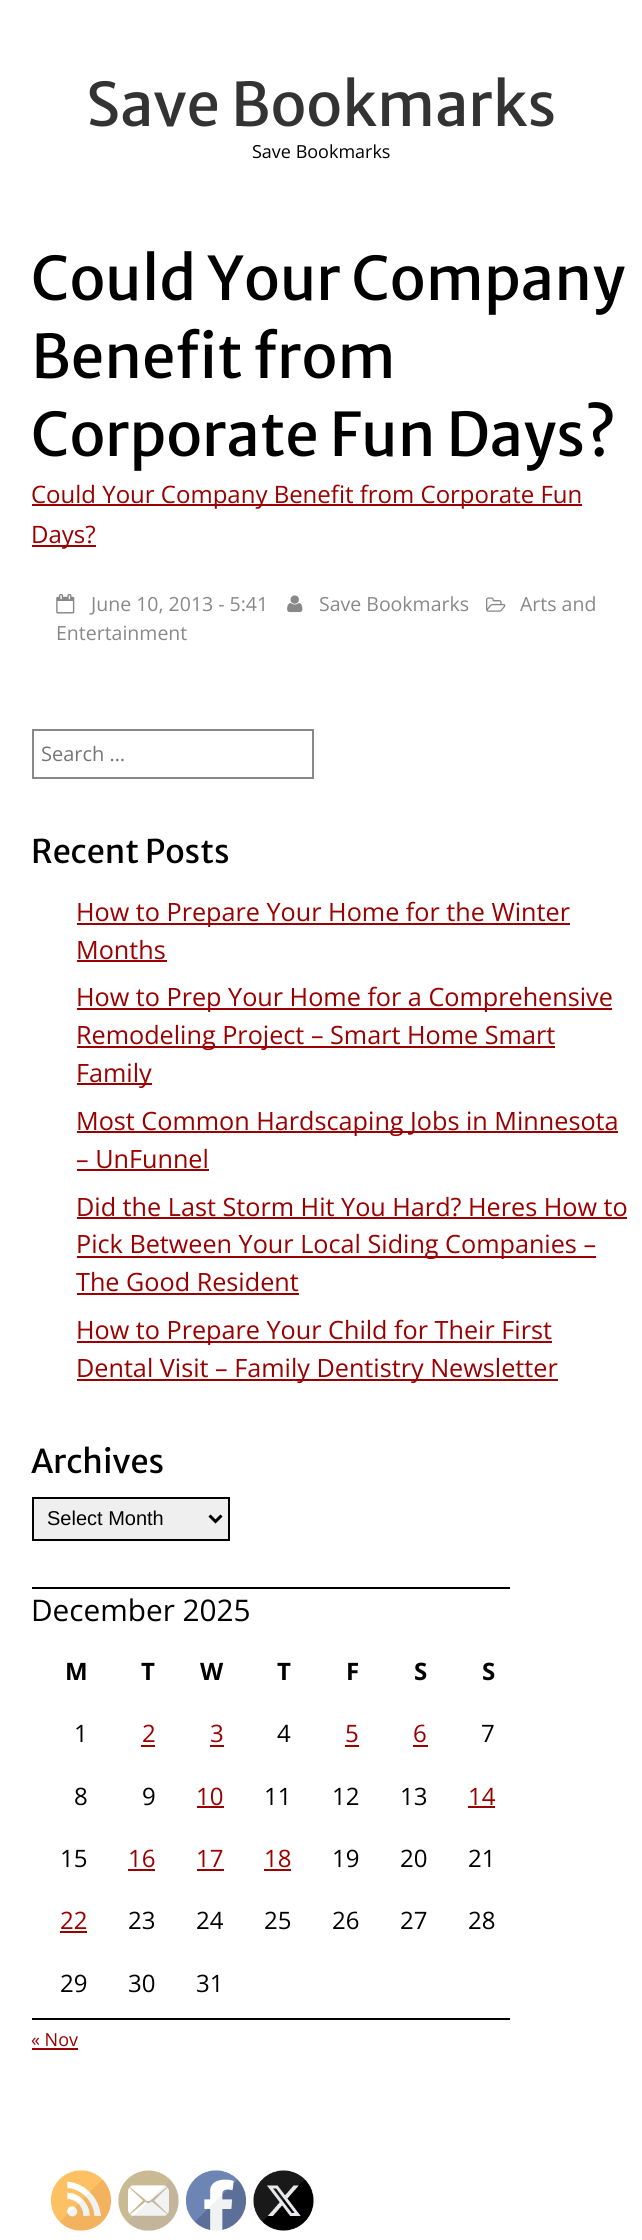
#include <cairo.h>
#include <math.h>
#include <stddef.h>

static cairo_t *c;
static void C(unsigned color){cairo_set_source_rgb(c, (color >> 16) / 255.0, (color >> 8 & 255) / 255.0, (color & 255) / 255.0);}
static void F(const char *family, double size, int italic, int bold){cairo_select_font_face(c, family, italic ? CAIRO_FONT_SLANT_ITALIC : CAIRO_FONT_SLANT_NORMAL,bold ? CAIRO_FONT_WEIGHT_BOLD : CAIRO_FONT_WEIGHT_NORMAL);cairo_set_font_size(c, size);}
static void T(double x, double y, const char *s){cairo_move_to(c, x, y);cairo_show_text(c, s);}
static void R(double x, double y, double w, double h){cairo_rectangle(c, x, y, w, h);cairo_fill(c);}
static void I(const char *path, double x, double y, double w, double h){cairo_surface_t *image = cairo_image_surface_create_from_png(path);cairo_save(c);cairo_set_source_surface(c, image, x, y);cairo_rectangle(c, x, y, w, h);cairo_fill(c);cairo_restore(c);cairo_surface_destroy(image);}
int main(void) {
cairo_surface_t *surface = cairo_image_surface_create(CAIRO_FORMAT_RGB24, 642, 2240);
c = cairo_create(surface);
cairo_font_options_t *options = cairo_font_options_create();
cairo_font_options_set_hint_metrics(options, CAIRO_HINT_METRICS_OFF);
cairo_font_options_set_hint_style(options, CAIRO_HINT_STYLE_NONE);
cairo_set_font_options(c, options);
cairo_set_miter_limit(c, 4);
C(0xffffff);
cairo_paint(c);
F("Merriweather Sans",60,0,0);
C(0x333333);
T(86,126,"Save Bookmarks");
F("Open Sans",18,0,0);
C(0x000000);
T(252,158,"Save Bookmarks");
F("Merriweather Sans",60,0,0);
T(31,300,"Could Your Company");
T(31,378,"Benefit from");
T(31,456,"Corporate Fun Days?");
C(0x9b0000);
R(32,504,550,2);
F("Open Sans",24,0,0);
T(31,503,"Could Your Company Benefit from Corporate Fun");
R(32,545,64,2);
T(31,543,"Days?");
I("1.png",486,597,20,15);
F("Open Sans",19.5,0,0);
C(0x888888);
T(520,611,"Arts and");
T(56,640,"Entertainment");
I("2.png",56,594,19,20);
T(91,611,"June 10, 2013 - 5:41");
I("3.png",287,595,16,18);
T(319,611,"Save Bookmarks");
cairo_rectangle(c,33,730,280,48);
cairo_stroke(c);
F("Open Sans",20,0,0);
C(0x757575);
T(41,761,"Search …");
F("Merriweather Sans",32.5,0,0);
C(0x000000);
T(31,863,"Recent Posts");
C(0x9b0000);
R(77,923,493,2);
F("Open Sans",25.2,0,0);
T(76,921,"How to Prepare Your Home for the Winter");
T(76,959,"Months");
R(77,960,90,2);
R(77,1008,535,2);
T(76,1006,"How to Prep Your Home for a Comprehensive");
R(77,1046,478,2);
T(76,1044,"Remodeling Project – Smart Home Smart");
R(77,1083,75,2);
T(76,1082,"Family");
R(77,1131,541,2);
T(76,1130,"Most Common Hardscaping Jobs in Minnesota");
T(76,1168,"– UnFunnel");
R(77,1169,132,2);
T(76,1216,"Did the Last Storm Hit You Hard? Heres How to");
R(77,1217,550,2);
R(77,1256,519,2);
T(76,1253,"Pick Between Your Local Siding Companies –");
T(76,1291,"The Good Resident");
R(77,1293,222,2);
R(77,1341,475,2);
T(76,1339,"How to Prepare Your Child for Their First");
R(77,1379,481,2);
T(76,1377,"Dental Visit – Family Dentistry Newsletter");
F("Merriweather Sans",32.5,0,0);
C(0x000000);
T(31,1473,"Archives");
C(0xefefef);
cairo_rectangle(c,33,1498,196,42);
cairo_fill_preserve(c);
C(0x000000);
cairo_stroke(c);
cairo_new_path(c);
cairo_move_to(c,209.5,1515.5);
cairo_line_to(c,215.5,1521.5);
cairo_line_to(c,221.5,1515.5);
cairo_set_line_width(c,3);
cairo_stroke(c);
F("Liberation Sans",20,0,0);
T(47,1525,"Select Month");
R(32,1587,478,2);
R(32,2018,478,2);
F("Open Sans",29.75,0,0);
T(31,1621,"December 2025");
F("Open Sans",24,0,1);
T(65,1680,"M");
T(141,1680,"T");
T(200,1680,"W");
T(277,1680,"T");
T(346,1680,"F");
T(414,1680,"S");
T(482,1680,"S");
F("Open Sans",24,0,0);
T(74,1742,"1");
C(0x9b0000);
T(142,1742,"2");
R(141,1745,14,2);
T(210,1742,"3");
R(210,1745,14,2);
C(0x000000);
T(277,1742,"4");
C(0x9b0000);
T(345,1742,"5");
R(345,1745,14,2);
T(413,1742,"6");
R(413,1745,15,2);
C(0x000000);
T(481,1742,"7");
T(74,1805,"8");
T(142,1805,"9");
C(0x9b0000);
T(196,1805,"10");
R(197,1806,27,2);
C(0x000000);
T(264,1805,"11");
T(332,1805,"12");
T(400,1805,"13");
C(0x9b0000);
T(468,1805,"14");
R(468,1806,27,2);
C(0x000000);
T(60,1867,"15");
C(0x9b0000);
T(128,1867,"16");
R(128,1869,27,2);
T(196,1867,"17");
R(197,1869,27,2);
T(264,1867,"18");
R(264,1869,27,2);
C(0x000000);
T(332,1867,"19");
T(400,1867,"20");
T(468,1867,"21");
C(0x9b0000);
T(60,1929,"22");
R(60,1931,27,2);
C(0x000000);
T(128,1929,"23");
T(196,1929,"24");
T(264,1929,"25");
T(332,1929,"26");
T(400,1929,"27");
T(468,1929,"28");
T(60,1992,"29");
T(128,1992,"30");
T(196,1992,"31");
F("Open Sans",18,0,0);
C(0x9b0000);
T(31,2046,"« Nov");
R(32,2048,46,2);
I("4.png",51,2170,60,61);
I("5.png",118,2170,61,61);
I("6.png",186,2170,60,61);
I("7.png",253,2170,61,61);
cairo_surface_write_to_png(surface, "o.png");
cairo_font_options_destroy(options);
cairo_destroy(c);
cairo_surface_destroy(surface);
return 0;
}
